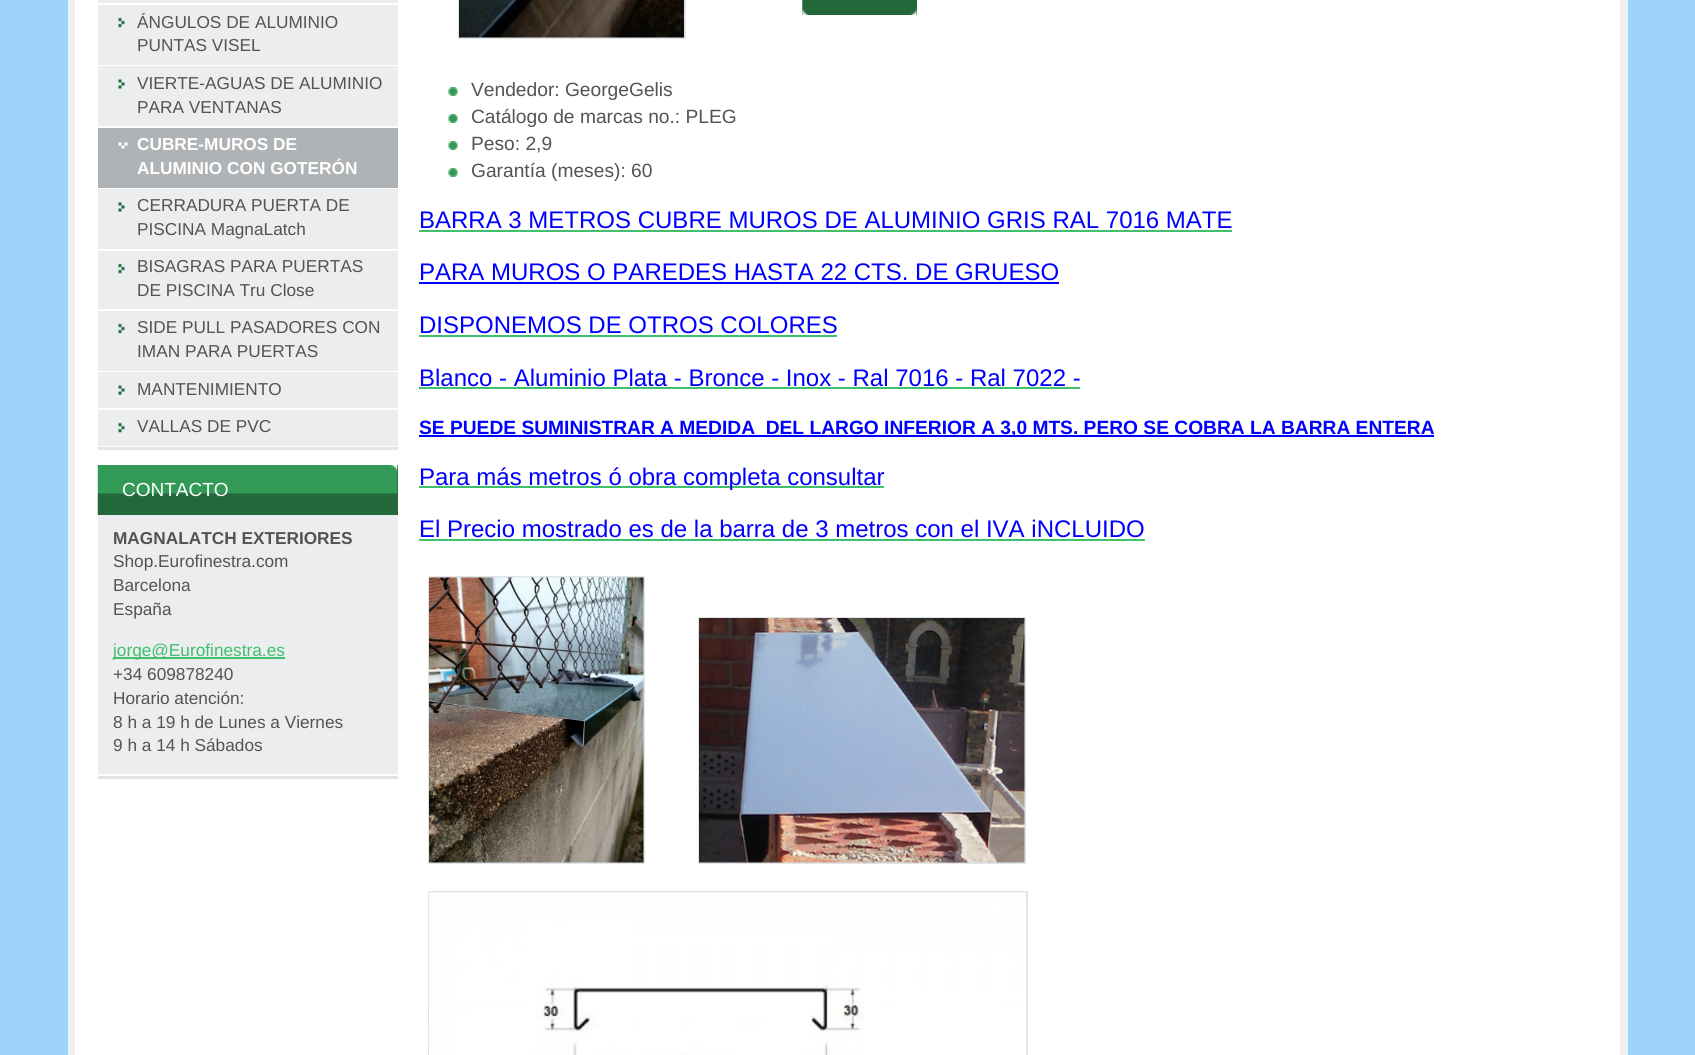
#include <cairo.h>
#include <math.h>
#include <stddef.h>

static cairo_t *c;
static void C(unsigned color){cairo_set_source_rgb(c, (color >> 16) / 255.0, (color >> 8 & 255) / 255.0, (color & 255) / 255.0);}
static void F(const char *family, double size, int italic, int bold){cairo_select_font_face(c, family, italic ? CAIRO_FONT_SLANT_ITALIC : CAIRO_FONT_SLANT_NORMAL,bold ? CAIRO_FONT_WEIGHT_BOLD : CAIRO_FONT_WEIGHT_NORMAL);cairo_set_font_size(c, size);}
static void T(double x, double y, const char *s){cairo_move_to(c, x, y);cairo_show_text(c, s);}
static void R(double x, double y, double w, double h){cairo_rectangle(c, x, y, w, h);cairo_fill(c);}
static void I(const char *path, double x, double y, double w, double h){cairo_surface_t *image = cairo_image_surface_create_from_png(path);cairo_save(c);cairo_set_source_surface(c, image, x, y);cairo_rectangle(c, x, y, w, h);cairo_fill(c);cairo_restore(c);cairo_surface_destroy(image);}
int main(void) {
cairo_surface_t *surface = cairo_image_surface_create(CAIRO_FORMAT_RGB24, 1695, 1055);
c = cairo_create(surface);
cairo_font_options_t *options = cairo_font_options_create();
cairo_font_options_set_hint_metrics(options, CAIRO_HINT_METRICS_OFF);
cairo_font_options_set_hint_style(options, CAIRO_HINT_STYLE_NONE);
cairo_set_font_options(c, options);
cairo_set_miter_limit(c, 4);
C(0x9ed3fc);
cairo_paint(c);
C(0xffffff);
R(75,0,1545,1055);
C(0xefefef);
R(1620,0,8,1055);
R(68,0,7,1055);
C(0xe2e5e8);
R(98,447,300,3);
C(0xebedef);
R(98,0,300,446);
C(0xffffff);
R(98,3,300,2);
I("1.png",118,17,7,11);
R(98,65,300,1);
F("Liberation Sans",17.25,0,0);
C(0x535353);
T(137,28,"ÁNGULOS DE ALUMINIO");
T(137,51,"PUNTAS VISEL");
I("2.png",118,79,7,10);
C(0xffffff);
R(98,126,300,2);
C(0x535353);
T(137,89,"VIERTE-AGUAS DE ALUMINIO");
T(137,113,"PARA VENTANAS");
C(0xb0b3b5);
R(98,128,300,60);
I("3.png",118,142,10,7);
C(0xffffff);
R(98,188,300,1);
F("Liberation Sans",17.25,0,1);
T(137,150,"CUBRE-MUROS DE");
T(137,174,"ALUMINIO CON GOTERÓN");
I("2.png",118,202,7,10);
R(98,249,300,2);
F("Liberation Sans",17.25,0,0);
C(0x535353);
T(137,211,"CERRADURA PUERTA DE");
T(137,235,"PISCINA MagnaLatch");
I("1.png",118,263,7,11);
C(0xffffff);
R(98,309,300,2);
C(0x535353);
T(137,272,"BISAGRAS PARA PUERTAS");
T(137,296,"DE PISCINA Tru Close");
I("1.png",118,323,7,11);
C(0xffffff);
R(98,371,300,1);
C(0x535353);
T(137,333,"SIDE PULL PASADORES CON");
T(137,357,"IMAN PARA PUERTAS");
I("4.png",118,385,7,10);
C(0xffffff);
R(98,408,300,2);
C(0x535353);
T(137,395,"MANTENIMIENTO");
I("5.png",118,422,7,11);
T(137,432,"VALLAS DE PVC");
C(0xe2e5e8);
R(98,776,300,3);
C(0xebedef);
R(98,515,300,259);
C(0x23683b);
R(98,465,300,50);
I("6.png",97,465,301,50);
F("Liberation Sans",19,0,0);
C(0xffffff);
T(122,496,"CONTACTO");
F("Liberation Sans",17.25,0,1);
C(0x535353);
T(113,544,"MAGNALATCH EXTERIORES");
F("Liberation Sans",17.25,0,0);
T(113,567,"Shop.Eurofinestra.com");
T(113,591,"Barcelona");
T(113,615,"España");
C(0x40bf6c);
R(113,657,133,2);
T(113,656,"jorge@Eurofinestra.es");
R(246,657,39,2);
C(0x535353);
T(113,680,"+34 609878240");
T(113,704,"Horario atención:");
T(113,728,"8 h a 19 h de Lunes a Viernes");
T(113,751,"9 h a 14 h Sábados");
I("7.png",802,0,1,15);
C(0x267140);
R(916,0,1,15);
I("8.png",802,0,115,15);
I("9.png",910,9,7,6);
cairo_rectangle(c,459,-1,226,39);
C(0xe2e5e8);
cairo_stroke(c);
I("10.png",459,0,225,38);
I("11.png",448,87,10,9);
F("Liberation Sans",19.2,0,0);
C(0x535353);
T(471,96,"Vendedor: GeorgeGelis");
I("11.png",448,114,10,9);
T(471,123,"Catálogo de marcas no.: PLEG");
I("11.png",448,141,10,9);
T(471,150,"Peso: 2,9");
I("11.png",448,168,10,9);
T(471,177,"Garantía (meses): 60");
F("Liberation Sans",24,0,0);
C(0x0000ff);
T(419,228,"BARRA 3 METROS CUBRE MUROS DE ALUMINIO GRIS RAL 7016 MATE");
C(0x40bf6c);
R(419,230,813,2);
C(0x0000ff);
T(419,280,"PARA MUROS O PAREDES HASTA 22 CTS. DE GRUESO");
R(419,282,640,2);
T(419,333,"DISPONEMOS DE OTROS COLORES");
C(0x40bf6c);
R(419,335,418,2);
C(0x0000ff);
T(419,386,"Blanco - Aluminio Plata - Bronce - Inox - Ral 7016 - Ral 7022 -");
C(0x40bf6c);
R(419,387,661,2);
C(0x0000ff);
R(419,435,1015,2);
F("Liberation Sans",19.2,0,1);
T(419,434,"SE PUEDE SUMINISTRAR A MEDIDA  DEL LARGO INFERIOR A 3,0 MTS. PERO SE COBRA LA BARRA ENTERA");
C(0x40bf6c);
R(419,486,465,2);
F("Liberation Sans",24,0,0);
C(0x0000ff);
T(419,485,"Para más metros ó obra completa consultar");
T(419,537,"El Precio mostrado es de la barra de 3 metros con el IVA iNCLUIDO");
C(0x40bf6c);
R(419,539,726,2);
cairo_rectangle(c,429,577,215,286);
C(0xe2e5e8);
cairo_stroke(c);
I("12.png",429,577,215,286);
cairo_rectangle(c,699,618,326,245);
cairo_stroke(c);
I("13.png",699,618,326,245);
cairo_rectangle(c,429,892,598,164);
cairo_stroke(c);
I("14.png",429,892,597,163);
cairo_surface_write_to_png(surface, "o.png");
cairo_font_options_destroy(options);
cairo_destroy(c);
cairo_surface_destroy(surface);
return 0;
}
